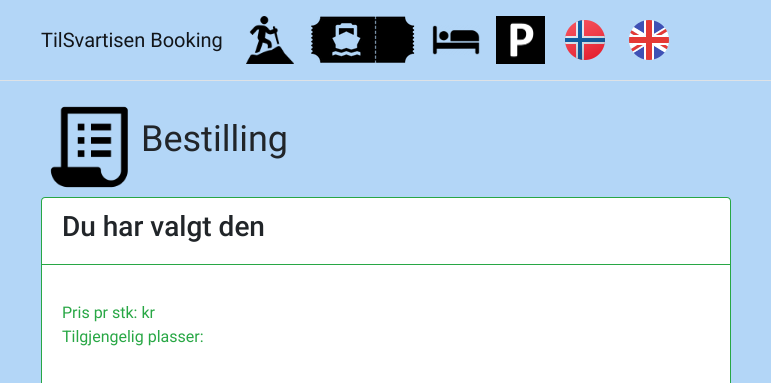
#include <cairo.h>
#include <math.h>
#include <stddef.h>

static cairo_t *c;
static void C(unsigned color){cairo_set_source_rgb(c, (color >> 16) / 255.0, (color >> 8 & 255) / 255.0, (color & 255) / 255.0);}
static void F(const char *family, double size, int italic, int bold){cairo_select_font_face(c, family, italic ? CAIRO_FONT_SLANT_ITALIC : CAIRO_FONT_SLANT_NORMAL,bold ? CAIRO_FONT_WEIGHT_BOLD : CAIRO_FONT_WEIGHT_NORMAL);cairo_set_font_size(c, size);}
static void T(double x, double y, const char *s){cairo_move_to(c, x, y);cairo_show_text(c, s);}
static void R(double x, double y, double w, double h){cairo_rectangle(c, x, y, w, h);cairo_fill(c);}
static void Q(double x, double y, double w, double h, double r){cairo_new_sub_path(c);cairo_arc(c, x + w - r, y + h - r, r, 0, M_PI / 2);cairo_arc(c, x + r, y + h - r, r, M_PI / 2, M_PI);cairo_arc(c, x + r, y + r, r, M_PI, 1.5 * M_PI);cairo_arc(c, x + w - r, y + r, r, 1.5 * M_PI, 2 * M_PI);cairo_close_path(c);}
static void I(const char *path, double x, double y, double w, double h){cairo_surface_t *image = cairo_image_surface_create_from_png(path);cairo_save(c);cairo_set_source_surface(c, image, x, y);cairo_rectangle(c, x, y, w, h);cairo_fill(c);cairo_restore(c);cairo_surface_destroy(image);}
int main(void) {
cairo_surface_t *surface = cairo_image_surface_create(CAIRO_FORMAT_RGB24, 771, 383);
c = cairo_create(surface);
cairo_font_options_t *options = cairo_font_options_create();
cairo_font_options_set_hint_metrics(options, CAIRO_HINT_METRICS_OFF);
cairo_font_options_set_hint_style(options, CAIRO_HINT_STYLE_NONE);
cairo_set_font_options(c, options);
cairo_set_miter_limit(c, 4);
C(0xb3d6f7);
cairo_paint(c);
C(0xdee2e6);
R(0,80,771,1);
F("Roboto",20,0,0);
C(0x121519);
T(41,47,"TilSvartisen Booking");
I("1.png",246,16,48,48);
I("2.png",311,16,104,47);
I("3.png",432,25,48,30);
I("4.png",496,16,49,48);
I("5.png",565,20,40,40);
I("6.png",629,20,40,40);
I("7.png",50,106,78,82);
F("Roboto",36,0,0);
C(0x212529);
T(141,151,"Bestilling");
C(0xffffff);
Q(41.5,197.5,689,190,3.5);
cairo_fill_preserve(c);
C(0x28a745);
cairo_set_line_width(c,1);
cairo_stroke(c);
R(42,264,688,1);
F("Roboto Medium",28,0,0);
C(0x212529);
T(62,236,"Du har valgt den");
F("Roboto",16,0,0);
C(0x28a745);
T(62,318,"Pris pr stk: kr");
T(62,342,"Tilgjengelig plasser:");
cairo_surface_write_to_png(surface, "o.png");
cairo_font_options_destroy(options);
cairo_destroy(c);
cairo_surface_destroy(surface);
return 0;
}
